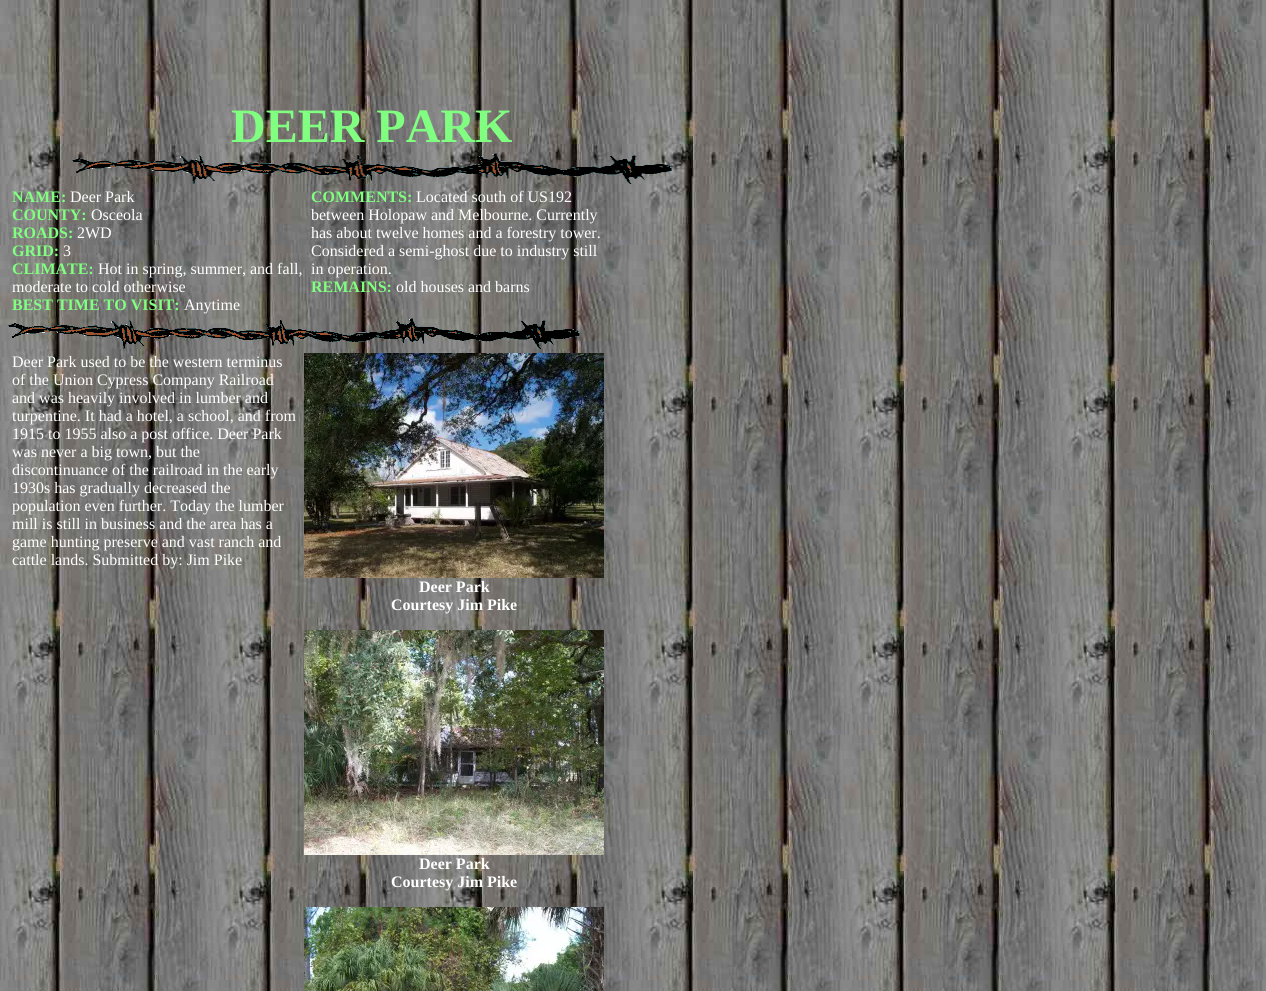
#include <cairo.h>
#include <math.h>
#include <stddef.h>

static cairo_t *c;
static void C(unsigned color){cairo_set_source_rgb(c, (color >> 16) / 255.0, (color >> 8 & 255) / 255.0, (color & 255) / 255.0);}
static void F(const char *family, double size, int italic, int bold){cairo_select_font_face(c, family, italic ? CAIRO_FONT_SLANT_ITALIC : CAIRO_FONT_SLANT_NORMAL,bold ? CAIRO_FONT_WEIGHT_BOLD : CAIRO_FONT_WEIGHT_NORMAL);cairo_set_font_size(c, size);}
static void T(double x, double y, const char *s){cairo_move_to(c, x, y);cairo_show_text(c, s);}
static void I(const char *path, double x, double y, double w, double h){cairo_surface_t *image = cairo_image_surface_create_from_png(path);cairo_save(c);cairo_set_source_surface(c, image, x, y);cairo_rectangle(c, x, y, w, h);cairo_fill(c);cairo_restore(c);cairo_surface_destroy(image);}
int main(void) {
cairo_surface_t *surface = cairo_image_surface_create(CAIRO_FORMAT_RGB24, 1266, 991);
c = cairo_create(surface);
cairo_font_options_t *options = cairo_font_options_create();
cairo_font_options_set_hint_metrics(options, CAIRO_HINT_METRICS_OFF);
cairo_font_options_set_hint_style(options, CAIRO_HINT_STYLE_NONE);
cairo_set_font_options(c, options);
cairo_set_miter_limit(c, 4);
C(0xffffff);
cairo_paint(c);
I("1.png",0,0,1266,991);
F("Liberation Serif",48,0,1);
C(0x80ff80);
T(231,142,"DEER PARK");
I("2.png",72,153,600,31);
F("Liberation Serif",16,0,1);
T(12,202,"NAME:");
F("Liberation Serif",16,0,0);
C(0xffffff);
T(70,202,"Deer Park");
F("Liberation Serif",16,0,1);
C(0x80ff80);
T(12,220,"COUNTY:");
F("Liberation Serif",16,0,0);
C(0xffffff);
T(91,220,"Osceola");
F("Liberation Serif",16,0,1);
C(0x80ff80);
T(12,238,"ROADS:");
F("Liberation Serif",16,0,0);
C(0xffffff);
T(77,238,"2WD");
F("Liberation Serif",16,0,1);
C(0x80ff80);
T(12,256,"GRID:");
F("Liberation Serif",16,0,0);
C(0xffffff);
T(63,256,"3");
F("Liberation Serif",16,0,1);
C(0x80ff80);
T(12,274,"CLIMATE:");
F("Liberation Serif",16,0,0);
C(0xffffff);
T(98,274,"Hot in spring, summer, and fall,");
T(12,292,"moderate to cold otherwise");
F("Liberation Serif",16,0,1);
C(0x80ff80);
T(12,310,"BEST TIME TO VISIT:");
F("Liberation Serif",16,0,0);
C(0xffffff);
T(184,310,"Anytime");
F("Liberation Serif",16,0,1);
C(0x80ff80);
T(311,202,"COMMENTS:");
F("Liberation Serif",16,0,0);
C(0xffffff);
T(416,202,"Located south of US192");
T(311,220,"between Holopaw and Melbourne. Currently");
T(311,238,"has about twelve homes and a forestry tower.");
T(311,256,"Considered a semi-ghost due to industry still");
T(311,274,"in operation.");
F("Liberation Serif",16,0,1);
C(0x80ff80);
T(311,292,"REMAINS:");
F("Liberation Serif",16,0,0);
C(0xffffff);
T(396,292,"old houses and barns");
I("3.png",8,318,572,31);
T(12,367,"Deer Park used to be the western terminus");
T(12,385,"of the Union Cypress Company Railroad");
T(12,403,"and was heavily involved in lumber and");
T(12,421,"turpentine. It had a hotel, a school, and from");
T(12,439,"1915 to 1955 also a post office. Deer Park");
T(12,457,"was never a big town, but the");
T(12,475,"discontinuance of the railroad in the early");
T(12,493,"1930s has gradually decreased the");
T(12,511,"population even further. Today the lumber");
T(12,529,"mill is still in business and the area has a");
T(12,547,"game hunting preserve and vast ranch and");
T(12,565,"cattle lands. Submitted by: Jim Pike");
I("4.png",304,353,300,225);
F("Liberation Serif",16,0,1);
T(419,592,"Deer Park");
T(391,610,"Courtesy Jim Pike");
I("5.png",304,630,300,225);
T(419,869,"Deer Park");
T(391,887,"Courtesy Jim Pike");
I("6.png",304,907,300,84);
cairo_surface_write_to_png(surface, "o.png");
cairo_font_options_destroy(options);
cairo_destroy(c);
cairo_surface_destroy(surface);
return 0;
}
